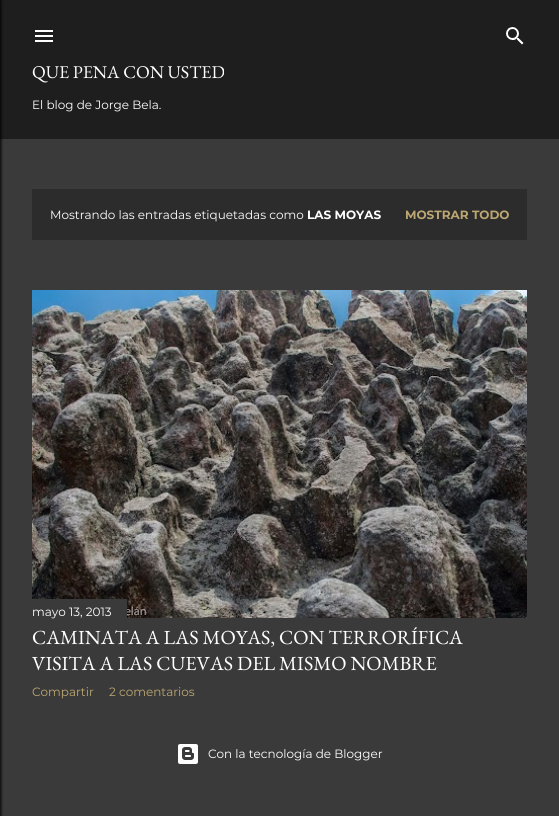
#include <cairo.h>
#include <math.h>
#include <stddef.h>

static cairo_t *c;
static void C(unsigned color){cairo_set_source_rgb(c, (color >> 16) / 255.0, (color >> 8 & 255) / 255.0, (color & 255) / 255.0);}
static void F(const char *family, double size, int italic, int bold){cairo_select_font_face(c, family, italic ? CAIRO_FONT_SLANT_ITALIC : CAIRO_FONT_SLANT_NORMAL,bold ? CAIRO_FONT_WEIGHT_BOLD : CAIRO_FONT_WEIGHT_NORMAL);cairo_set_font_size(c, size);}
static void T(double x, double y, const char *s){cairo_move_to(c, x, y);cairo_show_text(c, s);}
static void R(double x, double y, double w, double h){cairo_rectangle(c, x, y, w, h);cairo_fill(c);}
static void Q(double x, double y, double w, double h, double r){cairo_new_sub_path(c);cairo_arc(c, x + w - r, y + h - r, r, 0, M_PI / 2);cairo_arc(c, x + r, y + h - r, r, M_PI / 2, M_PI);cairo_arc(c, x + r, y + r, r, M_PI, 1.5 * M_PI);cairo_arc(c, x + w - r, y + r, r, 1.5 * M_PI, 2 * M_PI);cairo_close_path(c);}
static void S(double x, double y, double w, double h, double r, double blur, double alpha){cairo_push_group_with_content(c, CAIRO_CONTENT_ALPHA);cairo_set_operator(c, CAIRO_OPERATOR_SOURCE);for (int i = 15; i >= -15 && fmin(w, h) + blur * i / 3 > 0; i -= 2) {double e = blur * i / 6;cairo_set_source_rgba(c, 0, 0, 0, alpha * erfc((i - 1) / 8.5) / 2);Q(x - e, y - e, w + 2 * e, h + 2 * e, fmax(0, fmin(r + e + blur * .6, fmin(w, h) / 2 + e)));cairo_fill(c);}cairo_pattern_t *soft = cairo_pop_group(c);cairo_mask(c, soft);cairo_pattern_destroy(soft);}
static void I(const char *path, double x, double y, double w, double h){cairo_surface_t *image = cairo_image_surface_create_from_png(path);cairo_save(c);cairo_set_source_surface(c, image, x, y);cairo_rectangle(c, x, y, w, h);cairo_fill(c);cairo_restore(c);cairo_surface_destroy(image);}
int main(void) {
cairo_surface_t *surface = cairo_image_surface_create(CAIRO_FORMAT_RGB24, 559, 816);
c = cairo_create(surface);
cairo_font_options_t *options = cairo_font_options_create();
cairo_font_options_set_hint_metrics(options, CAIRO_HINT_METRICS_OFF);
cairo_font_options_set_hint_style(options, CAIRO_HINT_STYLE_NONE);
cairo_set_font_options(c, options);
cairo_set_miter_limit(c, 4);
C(0x3a3a3a);
cairo_paint(c);
C(0x1e1e1e);
R(0,0,559,139);
C(0x000000);
S(-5,0,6,816,0,1.5,1);
I("1.png",35,30,18,12);
I("2.png",506,27,18,18);
F("EB Garamond",18,0,0);
C(0xffffff);
T(32,78,"QUE PENA CON USTED");
F("Montserrat",12,0,0);
T(32,109,"El blog de Jorge Bela.");
C(0x2c2c2c);
R(32,189,495,51);
C(0xffffff);
T(50,219,"Mostrando las entradas etiquetadas como");
F("Montserrat",12,0,1);
T(307,219,"LAS MOYAS");
C(0xbca772);
T(405,219,"MOSTRAR TODO");
I("3.png",32,290,495,328);
C(0x3a3a3a);
R(32,599,95,19);
F("Montserrat",12,0,0);
C(0xffffff);
T(32,616,"mayo 13, 2013");
F("EB Garamond",20,0,0);
T(32,644,"CAMINATA A LAS MOYAS, CON TERRORÍFICA");
T(32,670,"VISITA A LAS CUEVAS DEL MISMO NOMBRE");
F("Montserrat",12,0,0);
C(0xbca772);
T(32,696,"Compartir");
T(109,696,"2 comentarios");
I("4.png",178,744,20,20);
C(0xffffff);
T(208,758,"Con la tecnología de Blogger");
cairo_surface_write_to_png(surface, "o.png");
cairo_font_options_destroy(options);
cairo_destroy(c);
cairo_surface_destroy(surface);
return 0;
}
